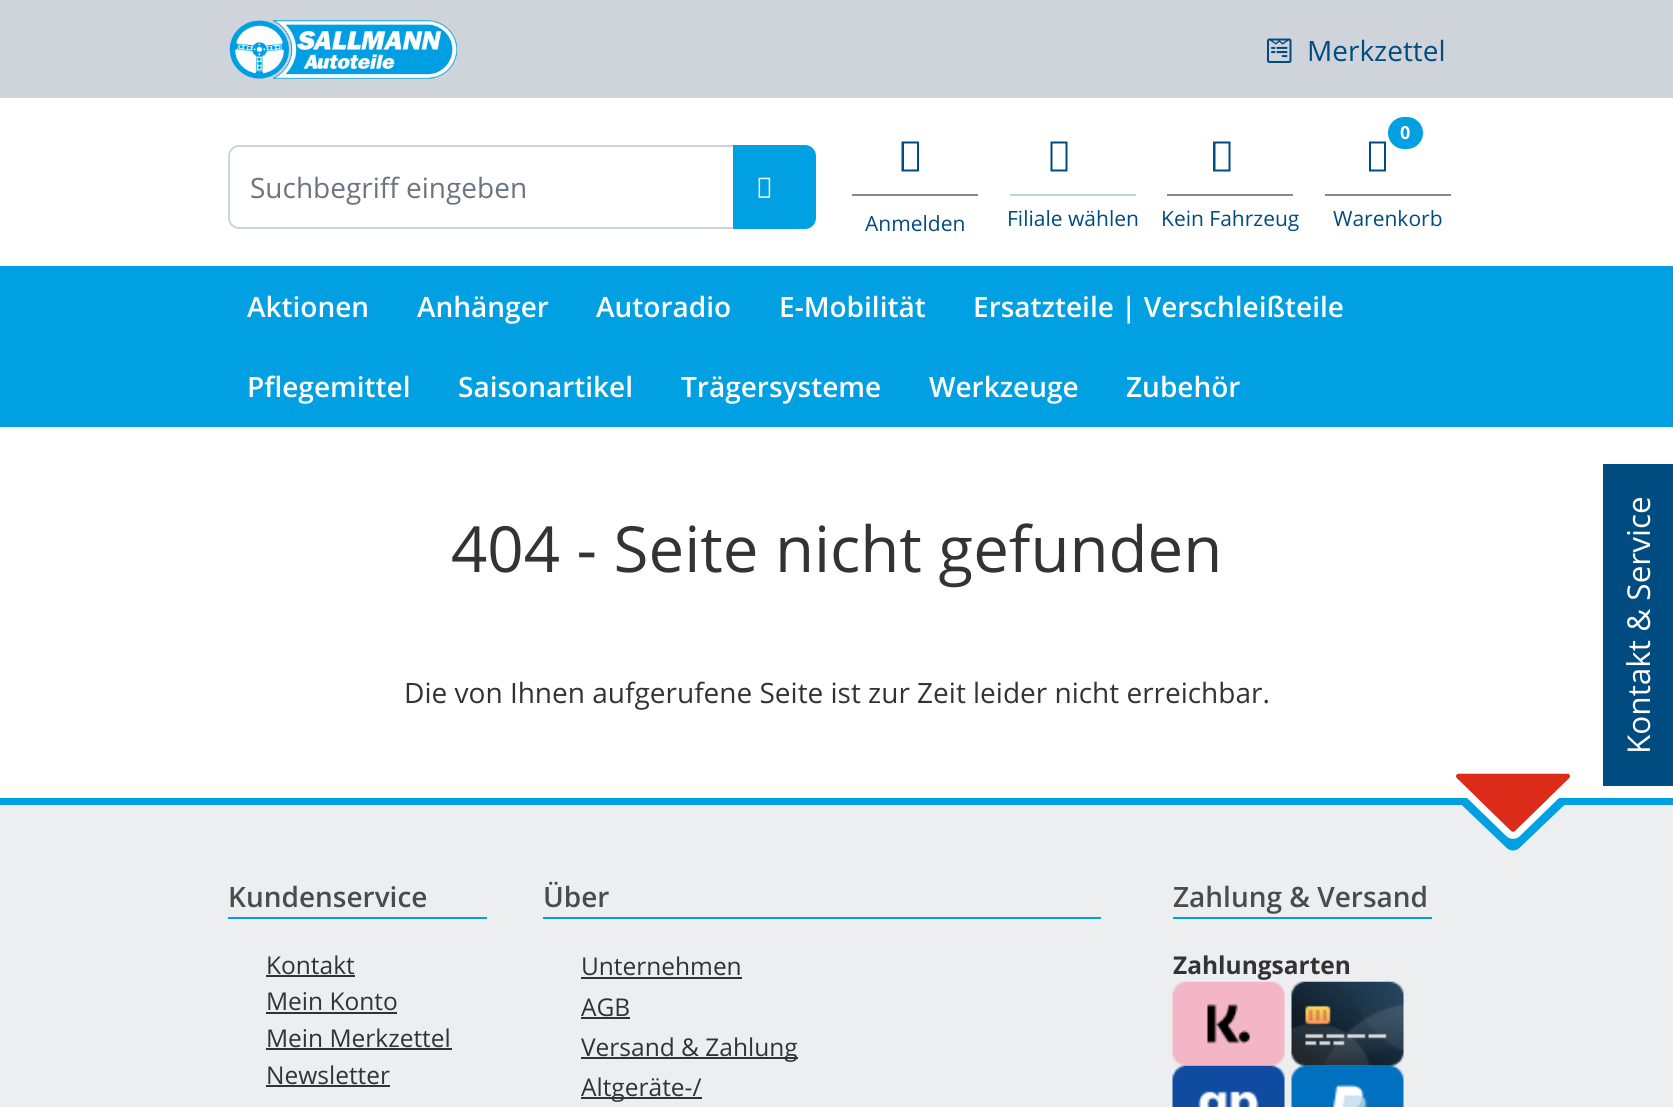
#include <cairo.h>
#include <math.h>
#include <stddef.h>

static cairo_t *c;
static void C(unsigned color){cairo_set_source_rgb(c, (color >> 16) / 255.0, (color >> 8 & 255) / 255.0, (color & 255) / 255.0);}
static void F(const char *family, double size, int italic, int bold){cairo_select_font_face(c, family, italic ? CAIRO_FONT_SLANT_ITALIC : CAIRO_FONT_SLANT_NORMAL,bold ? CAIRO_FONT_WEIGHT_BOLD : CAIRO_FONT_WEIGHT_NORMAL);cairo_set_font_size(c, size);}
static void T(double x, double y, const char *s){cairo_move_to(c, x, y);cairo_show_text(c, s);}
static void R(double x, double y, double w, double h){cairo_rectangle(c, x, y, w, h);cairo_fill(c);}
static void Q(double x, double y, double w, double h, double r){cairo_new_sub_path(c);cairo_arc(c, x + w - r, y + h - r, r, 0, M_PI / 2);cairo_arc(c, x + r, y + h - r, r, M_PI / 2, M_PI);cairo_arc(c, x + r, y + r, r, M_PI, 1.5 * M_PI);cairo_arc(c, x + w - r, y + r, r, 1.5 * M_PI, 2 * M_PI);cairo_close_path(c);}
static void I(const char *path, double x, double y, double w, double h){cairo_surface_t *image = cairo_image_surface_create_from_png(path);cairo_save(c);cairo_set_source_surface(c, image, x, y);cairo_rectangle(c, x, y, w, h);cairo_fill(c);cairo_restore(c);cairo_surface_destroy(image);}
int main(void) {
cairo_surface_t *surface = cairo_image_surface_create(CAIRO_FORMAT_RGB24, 1673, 1107);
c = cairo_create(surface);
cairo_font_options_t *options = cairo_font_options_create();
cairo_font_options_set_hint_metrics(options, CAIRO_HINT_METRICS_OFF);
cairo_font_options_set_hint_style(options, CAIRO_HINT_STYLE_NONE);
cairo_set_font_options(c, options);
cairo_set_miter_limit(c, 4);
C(0xffffff);
cairo_paint(c);
C(0xcfd4da);
R(0,0,1673,98);
I("1.png",229,20,229,59);
I("2.png",1267,38,25,25);
F("Open Sans",28,0,0);
C(0x004c80);
T(1307,61,"Merkzettel");
cairo_new_path(c);
cairo_move_to(c,239,146);
cairo_line_to(c,734,146);
cairo_line_to(c,734,228);
cairo_line_to(c,239,228);
cairo_curve_to(c,233.5,228,229,223.5,229,218);
cairo_line_to(c,229,156);
cairo_curve_to(c,229,150.5,233.5,146,239,146);
cairo_close_path(c);
C(0xced4da);
cairo_stroke(c);
C(0x6c757d);
T(250,198,"Suchbegriff eingeben");
C(0x00a0e3);
cairo_new_path(c);
cairo_move_to(c,734,146);
cairo_line_to(c,805,146);
cairo_curve_to(c,810.5,146,815,150.5,815,156);
cairo_line_to(c,815,218);
cairo_curve_to(c,815,223.5,810.5,228,805,228);
cairo_line_to(c,734,228);
cairo_close_path(c);
cairo_fill_preserve(c);
cairo_stroke(c);
I("3.png",758,177,13,21);
C(0x004c80);
cairo_new_path(c);
cairo_move_to(c,901.5,171.5);
cairo_line_to(c,901.5,141.5);
cairo_line_to(c,919,141.5);
cairo_line_to(c,919,171.5);
cairo_close_path(c);
cairo_move_to(c,904,169.5);
cairo_line_to(c,917,169.5);
cairo_line_to(c,917,143.5);
cairo_line_to(c,904,143.5);
cairo_close_path(c);
cairo_fill(c);
C(0x818a91);
R(852,194,126,2);
F("Open Sans",21,0,0);
C(0x004c80);
T(865,231,"Anmelden");
cairo_new_path(c);
cairo_move_to(c,1050.5,171.5);
cairo_line_to(c,1050.5,141.5);
cairo_line_to(c,1067.5,141.5);
cairo_line_to(c,1067.5,171.5);
cairo_close_path(c);
cairo_move_to(c,1052.5,169.5);
cairo_line_to(c,1065.5,169.5);
cairo_line_to(c,1065.5,143.5);
cairo_line_to(c,1052.5,143.5);
cairo_close_path(c);
cairo_fill(c);
C(0xbfd2df);
R(1010,194,126,2);
C(0x004c80);
T(1007,226,"Filiale wählen");
cairo_new_path(c);
cairo_move_to(c,1213,171.5);
cairo_line_to(c,1213,141.5);
cairo_line_to(c,1230.5,141.5);
cairo_line_to(c,1230.5,171.5);
cairo_close_path(c);
cairo_move_to(c,1215.5,169.5);
cairo_line_to(c,1228.5,169.5);
cairo_line_to(c,1228.5,143.5);
cairo_line_to(c,1215.5,143.5);
cairo_close_path(c);
cairo_fill(c);
C(0x818a91);
R(1167,194,126,2);
C(0x004c80);
T(1161,226,"Kein Fahrzeug");
C(0x00a0e3);
Q(1388,117,35,32,16);
cairo_fill(c);
F("Open Sans",18,0,1);
C(0xffffff);
T(1400,139,"0");
C(0x004c80);
cairo_new_path(c);
cairo_move_to(c,1369,171.5);
cairo_line_to(c,1369,141.5);
cairo_line_to(c,1386,141.5);
cairo_line_to(c,1386,171.5);
cairo_close_path(c);
cairo_move_to(c,1371,169.5);
cairo_line_to(c,1384,169.5);
cairo_line_to(c,1384,143.5);
cairo_line_to(c,1371,143.5);
cairo_close_path(c);
cairo_fill(c);
C(0x818a91);
R(1325,194,126,2);
F("Open Sans",21,0,0);
C(0x004c80);
T(1333,226,"Warenkorb");
C(0x00a0e3);
R(0,266,1673,161);
F("Open Sans SemiBold",28,0,0);
C(0xffffff);
T(247,317,"Aktionen");
T(417,317,"Anhänger");
T(596,317,"Autoradio");
T(779,317,"E-Mobilität");
T(973,317,"Ersatzteile | Verschleißteile");
T(247,397,"Pflegemittel");
T(458,397,"Saisonartikel");
T(681,397,"Trägersysteme");
T(929,397,"Werkzeuge");
T(1126,397,"Zubehör");
C(0x004c80);
R(1603,464,70,322);
F("Open Sans",31.5,0,0);
C(0xffffff);
cairo_save(c);
cairo_translate(c,1650,754);
cairo_rotate(c,-90 * M_PI / 180);
T(0,0,"Kontakt & Service");
cairo_restore(c);
F("Open Sans",63.6,0,0);
C(0x333333);
T(451,572,"404 - Seite nicht gefunden");
F("Open Sans",28,0,0);
T(404,703,"Die von Ihnen aufgerufene Seite ist zur Zeit leider nicht erreichbar.");
C(0x00a0e3);
R(0,798,1673,7);
C(0xeceeef);
R(0,805,1673,302);
I("4.png",1456,773,114,78);
C(0x00a0e3);
R(228,917,259,2);
F("Open Sans SemiBold",28,0,0);
C(0x4b4b4b);
T(228,907,"Kundenservice");
F("Open Sans",24.5,0,0);
C(0x333333);
T(266,974,"Kontakt");
R(266,975,89,2);
T(266,1010,"Mein Konto");
R(266,1012,131,2);
T(266,1047,"Mein Merkzettel");
R(266,1048,186,2);
T(266,1084,"Newsletter");
R(266,1085,124,2);
C(0x00a0e3);
R(543,917,558,2);
F("Open Sans SemiBold",28,0,0);
C(0x4b4b4b);
T(543,907,"Über");
F("Open Sans",24.5,0,0);
C(0x333333);
T(581,975,"Unternehmen");
R(581,977,161,2);
T(581,1016,"AGB");
R(581,1017,49,2);
R(581,1057,217,2);
T(581,1056,"Versand & Zahlung");
R(581,1097,121,2);
T(581,1096,"Altgeräte-/");
C(0x00a0e3);
R(1173,917,259,2);
F("Open Sans SemiBold",28,0,0);
C(0x4b4b4b);
T(1173,907,"Zahlung & Versand");
F("Open Sans",24.5,0,1);
C(0x333333);
T(1173,974,"Zahlungsarten");
I("5.png",1172,981,113,85);
I("6.png",1291,981,113,85);
I("7.png",1172,1065,113,42);
I("8.png",1291,1065,113,42);
cairo_surface_write_to_png(surface, "o.png");
cairo_font_options_destroy(options);
cairo_destroy(c);
cairo_surface_destroy(surface);
return 0;
}
